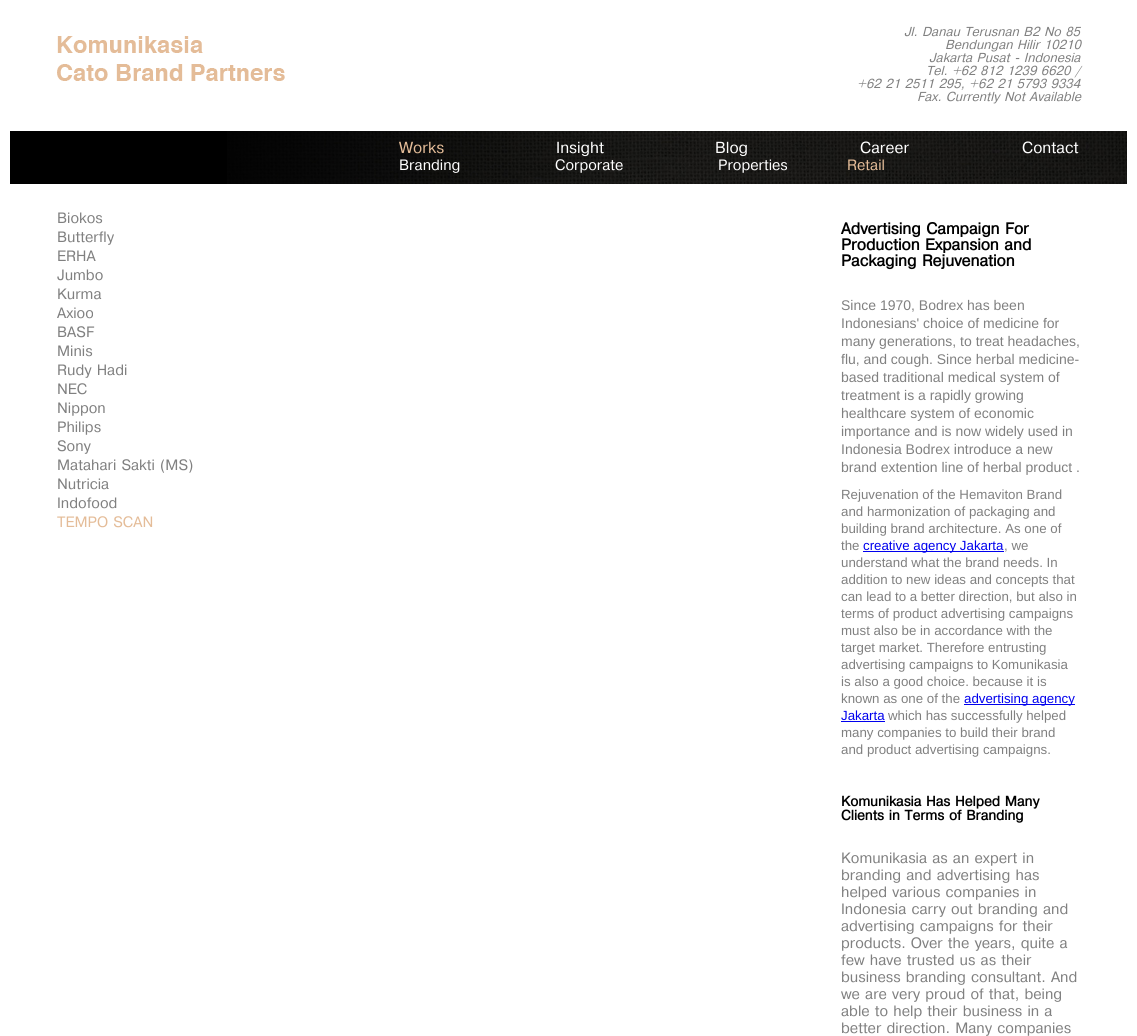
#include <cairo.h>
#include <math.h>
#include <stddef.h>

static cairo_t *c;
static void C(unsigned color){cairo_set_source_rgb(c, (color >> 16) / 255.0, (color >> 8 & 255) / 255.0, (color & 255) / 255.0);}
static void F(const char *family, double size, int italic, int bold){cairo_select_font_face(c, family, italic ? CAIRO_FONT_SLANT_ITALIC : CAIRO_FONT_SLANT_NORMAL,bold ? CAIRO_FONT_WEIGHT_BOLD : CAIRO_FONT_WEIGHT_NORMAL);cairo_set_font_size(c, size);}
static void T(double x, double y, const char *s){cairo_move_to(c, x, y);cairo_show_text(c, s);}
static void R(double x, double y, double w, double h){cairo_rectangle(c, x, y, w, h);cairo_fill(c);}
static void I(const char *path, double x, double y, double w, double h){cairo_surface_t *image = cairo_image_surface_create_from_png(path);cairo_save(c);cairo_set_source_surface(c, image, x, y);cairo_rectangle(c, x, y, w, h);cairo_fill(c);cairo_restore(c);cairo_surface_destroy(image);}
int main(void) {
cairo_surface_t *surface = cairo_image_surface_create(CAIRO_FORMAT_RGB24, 1137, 1036);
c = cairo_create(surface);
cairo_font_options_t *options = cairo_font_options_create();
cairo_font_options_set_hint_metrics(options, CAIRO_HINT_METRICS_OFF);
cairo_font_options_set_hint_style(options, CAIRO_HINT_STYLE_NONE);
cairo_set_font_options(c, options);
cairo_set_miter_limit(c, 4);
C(0xffffff);
cairo_paint(c);
I("1.png",57,36,228,45);
F("Helvetica",13,1,0);
C(0x808080);
T(904,36,"Jl. Danau Terusnan B2 No 85");
T(945,49,"Bendungan Hilir 10210");
T(929,62,"Jakarta Pusat - Indonesia");
T(926,75,"Tel. +62 812 1239 6620 /");
T(857,88,"+62 21 2511 295, +62 21 5793 9334");
T(917,101,"Fax. Currently Not Available");
C(0x000000);
R(10,131,217,53);
I("2.png",227,131,900,53);
F("Helvetica",16,0,0);
C(0xe4bc98);
T(399,153,"Works");
F("Helvetica",15,0,0);
C(0xffffff);
T(399,170,"Branding");
T(555,170,"Corporate");
T(718,170,"Properties");
C(0xe4bc98);
T(847,170,"Retail");
F("Helvetica",16,0,0);
C(0xffffff);
T(556,153,"Insight");
T(715,153,"Blog");
T(860,153,"Career");
T(1022,153,"Contact");
F("Helvetica",15,0,0);
C(0x808080);
T(57,223,"Biokos");
T(57,242,"Butterfly");
T(57,261,"ERHA");
T(57,280,"Jumbo");
T(57,299,"Kurma");
T(57,318,"Axioo");
T(57,337,"BASF");
T(57,356,"Minis");
T(57,375,"Rudy Hadi");
T(57,394,"NEC");
T(57,413,"Nippon");
T(57,432,"Philips");
T(57,451,"Sony");
T(57,470,"Matahari Sakti (MS)");
T(57,489,"Nutricia");
T(57,508,"Indofood");
C(0xe4bc98);
T(57,527,"TEMPO SCAN");
F("Helvetica",16,0,1);
C(0x000000);
T(841,234,"Advertising Campaign For");
T(841,250,"Production Expansion and");
T(841,266,"Packaging Rejuvenation");
F("Liberation Sans",14,0,0);
C(0x808080);
T(841,310,"Since 1970, Bodrex has been");
T(841,328,"Indonesians' choice of medicine for");
T(841,346,"many generations, to treat headaches,");
T(841,364,"flu, and cough. Since herbal medicine-");
T(841,382,"based traditional medical system of");
T(841,400,"treatment is a rapidly growing");
T(841,418,"healthcare system of economic");
T(841,436,"importance and is now widely used in");
T(841,454,"Indonesia Bodrex introduce a new");
T(841,472,"brand extention line of herbal product .");
F("Liberation Sans",13.3,0,0);
T(841,499,"Rejuvenation of the Hemaviton Brand");
T(841,516,"and harmonization of packaging and");
T(841,533,"building brand architecture. As one of");
T(841,550,"the");
C(0x0000ee);
R(863,551,141,1);
T(863,550,"creative agency Jakarta");
C(0x808080);
T(1004,550,", we");
T(841,567,"understand what the brand needs. In");
T(841,584,"addition to new ideas and concepts that");
T(841,601,"can lead to a better direction, but also in");
T(841,618,"terms of product advertising campaigns");
T(841,635,"must also be in accordance with the");
T(841,652,"target market. Therefore entrusting");
T(841,669,"advertising campaigns to Komunikasia");
T(841,686,"is also a good choice. because it is");
T(841,703,"known as one of the");
C(0x0000ee);
R(964,704,111,1);
T(964,703,"advertising agency");
T(841,720,"Jakarta");
R(841,721,44,1);
C(0x808080);
T(888,720,"which has successfully helped");
T(841,737,"many companies to build their brand");
T(841,754,"and product advertising campaigns.");
F("Helvetica",14,0,1);
C(0x000000);
T(841,806,"Komunikasia Has Helped Many");
T(841,820,"Clients in Terms of Branding");
F("Helvetica",15,0,0);
C(0x808080);
T(841,863,"Komunikasia as an expert in");
T(841,880,"branding and advertising has");
T(841,897,"helped various companies in");
T(841,914,"Indonesia carry out branding and");
T(841,931,"advertising campaigns for their");
T(841,948,"products. Over the years, quite a");
T(841,965,"few have trusted us as their");
T(841,982,"business branding consultant. And");
T(841,999,"we are very proud of that, being");
T(841,1016,"able to help their business in a");
T(841,1033,"better direction. Many companies");
cairo_surface_write_to_png(surface, "o.png");
cairo_font_options_destroy(options);
cairo_destroy(c);
cairo_surface_destroy(surface);
return 0;
}
